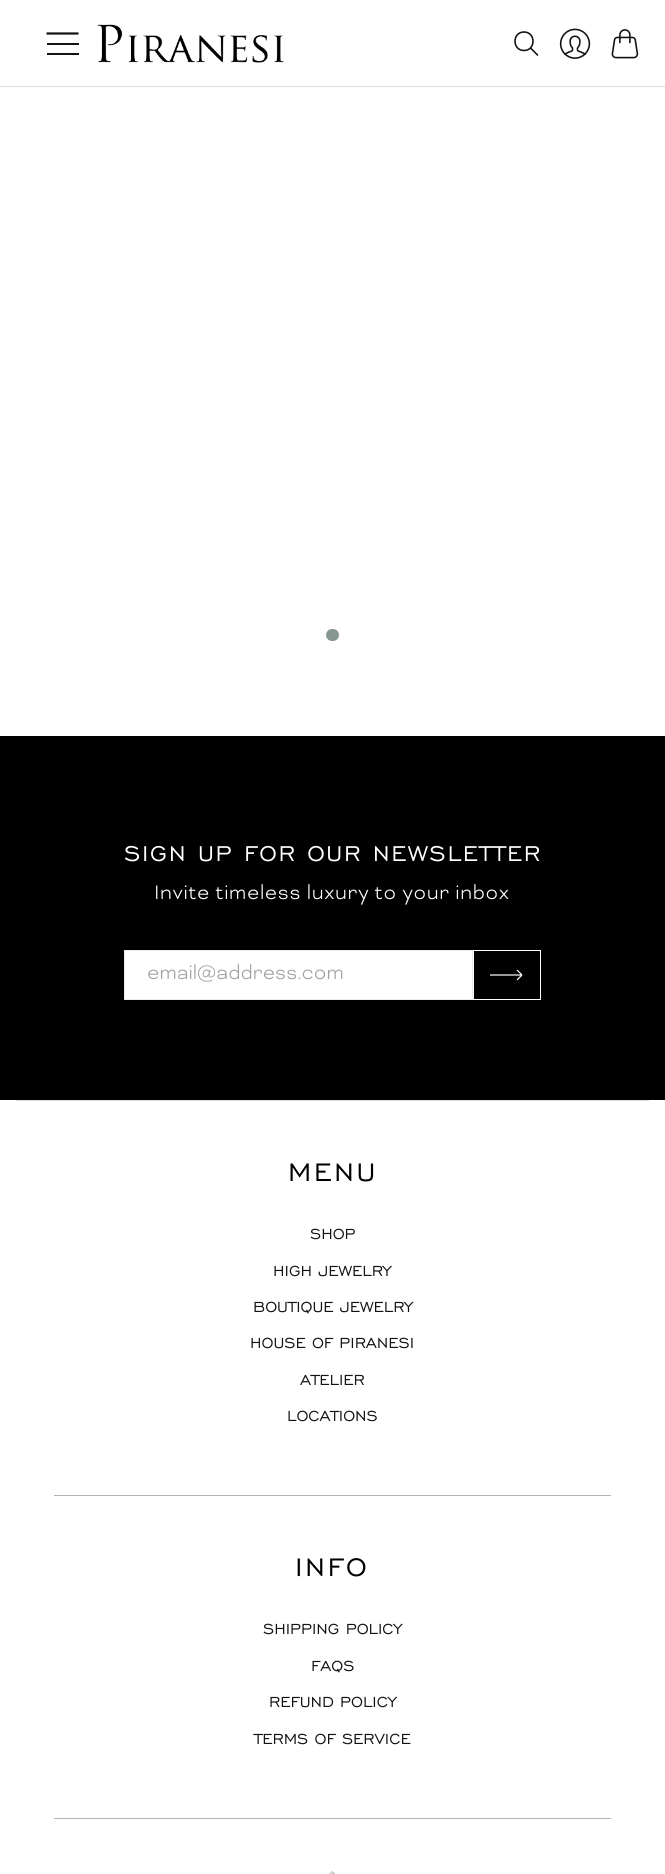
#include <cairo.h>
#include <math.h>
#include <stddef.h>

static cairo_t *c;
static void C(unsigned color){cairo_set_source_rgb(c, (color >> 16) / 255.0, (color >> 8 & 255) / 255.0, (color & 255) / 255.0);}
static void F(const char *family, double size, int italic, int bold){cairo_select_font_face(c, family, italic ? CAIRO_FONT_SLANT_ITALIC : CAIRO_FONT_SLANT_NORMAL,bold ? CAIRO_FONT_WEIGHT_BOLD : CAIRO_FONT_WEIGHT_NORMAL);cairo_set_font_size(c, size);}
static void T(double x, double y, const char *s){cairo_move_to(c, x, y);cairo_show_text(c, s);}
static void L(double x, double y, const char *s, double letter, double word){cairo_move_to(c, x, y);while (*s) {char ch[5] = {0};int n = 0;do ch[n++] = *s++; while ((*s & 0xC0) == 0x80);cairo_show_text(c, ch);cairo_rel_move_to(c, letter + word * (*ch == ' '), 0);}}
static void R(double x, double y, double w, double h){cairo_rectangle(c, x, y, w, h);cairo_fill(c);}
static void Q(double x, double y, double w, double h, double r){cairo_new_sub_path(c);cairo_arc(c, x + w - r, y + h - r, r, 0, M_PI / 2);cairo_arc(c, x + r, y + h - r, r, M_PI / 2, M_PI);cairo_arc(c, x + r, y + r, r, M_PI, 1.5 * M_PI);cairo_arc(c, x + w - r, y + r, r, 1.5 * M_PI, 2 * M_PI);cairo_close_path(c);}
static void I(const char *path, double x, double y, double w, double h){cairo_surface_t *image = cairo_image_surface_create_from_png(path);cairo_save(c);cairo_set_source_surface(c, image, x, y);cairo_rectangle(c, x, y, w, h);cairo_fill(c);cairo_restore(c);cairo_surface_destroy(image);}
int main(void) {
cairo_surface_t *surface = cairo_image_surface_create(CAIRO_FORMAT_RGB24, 665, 1874);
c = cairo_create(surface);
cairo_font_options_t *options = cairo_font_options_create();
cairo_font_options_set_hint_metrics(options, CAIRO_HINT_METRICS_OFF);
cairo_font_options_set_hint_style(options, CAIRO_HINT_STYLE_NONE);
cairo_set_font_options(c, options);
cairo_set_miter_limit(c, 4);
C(0xffffff);
cairo_paint(c);
C(0xdcdcdc);
R(0,86,665,1);
cairo_new_path(c);
cairo_move_to(c,46.5,33.5);
cairo_line_to(c,78.5,33.5);
C(0x131313);
cairo_set_line_width(c,2.2);
cairo_stroke(c);
R(47,43,32,2);
R(47,53,32,2);
I("1.png",97,24,187,39);
cairo_new_path(c);
cairo_move_to(c,524,50.5);
cairo_curve_to(c,536,50.5,536,32,524,32);
cairo_curve_to(c,512,32,512,50.5,524,50.5);
cairo_close_path(c);
cairo_move_to(c,537.5,55);
cairo_line_to(c,530.5,48);
cairo_set_line_width(c,1.6);
cairo_set_line_cap(c,CAIRO_LINE_CAP_ROUND);
cairo_set_line_join(c,CAIRO_LINE_JOIN_ROUND);
cairo_stroke(c);
I("2.png",559,28,32,31);
I("3.png",611,29,28,30);
C(0x869791);
Q(326,629,13,12,6);
cairo_fill(c);
C(0x000000);
R(0,736,665,364);
F("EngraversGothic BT",27.5,0,0);
C(0xffffff);
L(124,861,"SIGN UP FOR OUR NEWSLETTER",1.65,0);
F("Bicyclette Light",22.5,0,0);
L(154,899,"Invite timeless luxury to your inbox",.6,0);
cairo_rectangle(c,124.5,950.5,348,49);
cairo_fill_preserve(c);
C(0xeaeaea);
cairo_set_line_width(c,1);
cairo_set_line_cap(c,CAIRO_LINE_CAP_BUTT);
cairo_set_line_join(c,CAIRO_LINE_JOIN_MITER);
cairo_stroke(c);
C(0xa1a1a1);
T(147,979,"email@address.com");
cairo_rectangle(c,473.5,950.5,67,49);
C(0xffffff);
cairo_stroke(c);
cairo_new_path(c);
cairo_move_to(c,490,975);
cairo_line_to(c,522,975);
cairo_move_to(c,522,975);
cairo_line_to(c,517,970);
cairo_move_to(c,522,975);
cairo_line_to(c,517,980);
cairo_set_line_width(c,1.2);
cairo_stroke(c);
C(0xdcdcdc);
R(16,1100,633,1);
F("EngraversGothic BT",32.5,0,0);
C(0x000000);
L(288,1181,"MENU",2.5,0);
F("EngraversGothic BT",18.75,0,0);
C(0x131313);
T(310,1239,"SHOP");
T(273,1276,"HIGH JEWELRY");
T(253,1312,"BOUTIQUE JEWELRY");
T(250,1348,"HOUSE OF PIRANESI");
T(300,1385,"ATELIER");
T(287,1421,"LOCATIONS");
C(0xb3b3b3);
R(54,1495,557,1);
F("EngraversGothic BT",32.5,0,0);
C(0x000000);
L(295,1576,"INFO",2.5,0);
F("EngraversGothic BT",18.75,0,0);
C(0x131313);
T(263,1634,"SHIPPING POLICY");
T(311,1671,"FAQS");
T(269,1707,"REFUND POLICY");
T(254,1744,"TERMS OF SERVICE");
C(0xb3b3b3);
R(54,1818,557,1);
I("4.png",329,1871,7,3);
cairo_surface_write_to_png(surface, "o.png");
cairo_font_options_destroy(options);
cairo_destroy(c);
cairo_surface_destroy(surface);
return 0;
}
